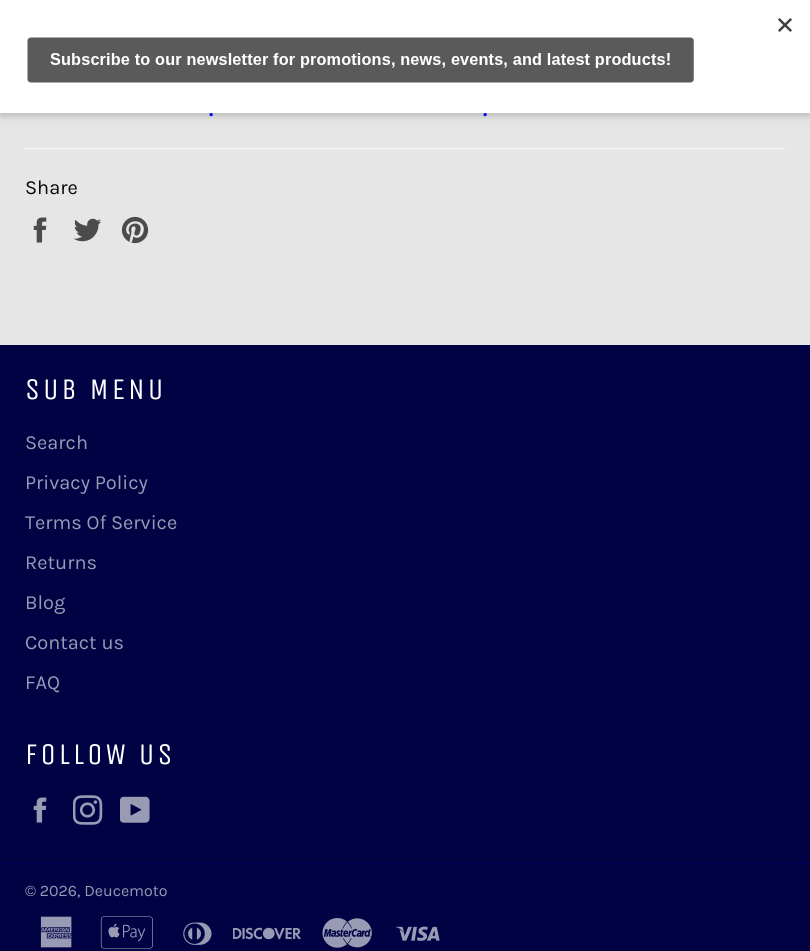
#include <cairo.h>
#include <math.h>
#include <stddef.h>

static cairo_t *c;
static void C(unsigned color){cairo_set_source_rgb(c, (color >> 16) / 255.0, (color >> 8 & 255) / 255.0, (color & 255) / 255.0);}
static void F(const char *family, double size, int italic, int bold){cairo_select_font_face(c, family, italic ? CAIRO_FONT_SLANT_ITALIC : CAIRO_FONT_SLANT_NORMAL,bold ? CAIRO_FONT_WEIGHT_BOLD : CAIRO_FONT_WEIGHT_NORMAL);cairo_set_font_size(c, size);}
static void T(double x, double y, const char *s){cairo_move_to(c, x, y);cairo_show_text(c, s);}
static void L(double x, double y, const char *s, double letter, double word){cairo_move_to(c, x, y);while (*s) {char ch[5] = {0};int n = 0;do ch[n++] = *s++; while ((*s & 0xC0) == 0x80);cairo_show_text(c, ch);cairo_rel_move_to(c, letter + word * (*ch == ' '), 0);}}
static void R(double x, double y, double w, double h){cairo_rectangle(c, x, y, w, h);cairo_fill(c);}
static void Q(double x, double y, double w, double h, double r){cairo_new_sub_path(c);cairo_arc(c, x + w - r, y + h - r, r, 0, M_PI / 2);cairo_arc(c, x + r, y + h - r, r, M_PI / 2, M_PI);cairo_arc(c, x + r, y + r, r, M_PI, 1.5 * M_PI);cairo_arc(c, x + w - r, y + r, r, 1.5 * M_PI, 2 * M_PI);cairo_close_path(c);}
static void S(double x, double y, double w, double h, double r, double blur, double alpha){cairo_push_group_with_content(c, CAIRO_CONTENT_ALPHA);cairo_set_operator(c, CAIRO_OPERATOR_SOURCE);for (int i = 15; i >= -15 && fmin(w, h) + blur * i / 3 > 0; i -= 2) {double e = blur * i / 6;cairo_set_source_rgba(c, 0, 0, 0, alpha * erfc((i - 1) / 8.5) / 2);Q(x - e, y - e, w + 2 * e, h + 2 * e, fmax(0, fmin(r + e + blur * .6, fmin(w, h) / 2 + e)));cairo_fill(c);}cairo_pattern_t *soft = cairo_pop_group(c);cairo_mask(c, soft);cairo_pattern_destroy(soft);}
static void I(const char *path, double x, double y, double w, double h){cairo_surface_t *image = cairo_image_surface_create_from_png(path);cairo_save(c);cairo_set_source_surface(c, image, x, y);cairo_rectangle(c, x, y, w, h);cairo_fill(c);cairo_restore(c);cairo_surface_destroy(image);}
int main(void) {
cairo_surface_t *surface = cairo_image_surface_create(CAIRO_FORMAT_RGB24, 810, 951);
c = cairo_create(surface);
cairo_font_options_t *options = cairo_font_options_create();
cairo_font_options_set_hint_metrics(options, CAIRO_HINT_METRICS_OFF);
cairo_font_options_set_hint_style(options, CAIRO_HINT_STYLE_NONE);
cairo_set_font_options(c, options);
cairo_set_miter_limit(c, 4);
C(0xe6e6e6);
cairo_paint(c);
C(0x000000);
S(0,4,810,112,0,4,.2);
C(0xffffff);
R(0,0,810,113);
I("1.png",27,18,765,65);
F("Karla",20,0,1);
C(0x0000ff);
T(209,116,".");
T(483,116,".");
C(0xfcfcfc);
R(25,148,760,1);
F("Karla",20,0,0);
C(0x090909);
T(25,194,"Share");
I("2.png",33,217,14,26);
I("3.png",73,218,29,24);
I("4.png",121,216,28,28);
C(0x000244);
R(0,345,810,606);
F("Unica One",30,0,0);
C(0xffffff);
L(25,399,"SUB MENU",3,0);
F("Karla",20,0,0);
C(0x999ab4);
T(25,449,"Search");
T(25,489,"Privacy Policy");
T(25,529,"Terms Of Service");
T(25,569,"Returns");
T(25,609,"Blog");
T(25,649,"Contact us");
T(25,689,"FAQ");
F("Unica One",30,0,0);
C(0xffffff);
L(25,764,"FOLLOW US",3,0);
I("5.png",33,797,14,26);
I("6.png",73,795,30,30);
I("7.png",120,796,30,27);
C(0x00035e);
R(0,863,810,1);
F("Karla",16,0,0);
C(0x999ab4);
T(25,896,"© 2026, Deucemoto");
I("8.png",40,916,32,32);
I("9.png",100,916,53,33);
I("10.png",183,922,29,23);
I("11.png",233,927,68,13);
I("12.png",322,918,50,30);
I("13.png",395,926,45,15);
cairo_surface_write_to_png(surface, "o.png");
cairo_font_options_destroy(options);
cairo_destroy(c);
cairo_surface_destroy(surface);
return 0;
}
